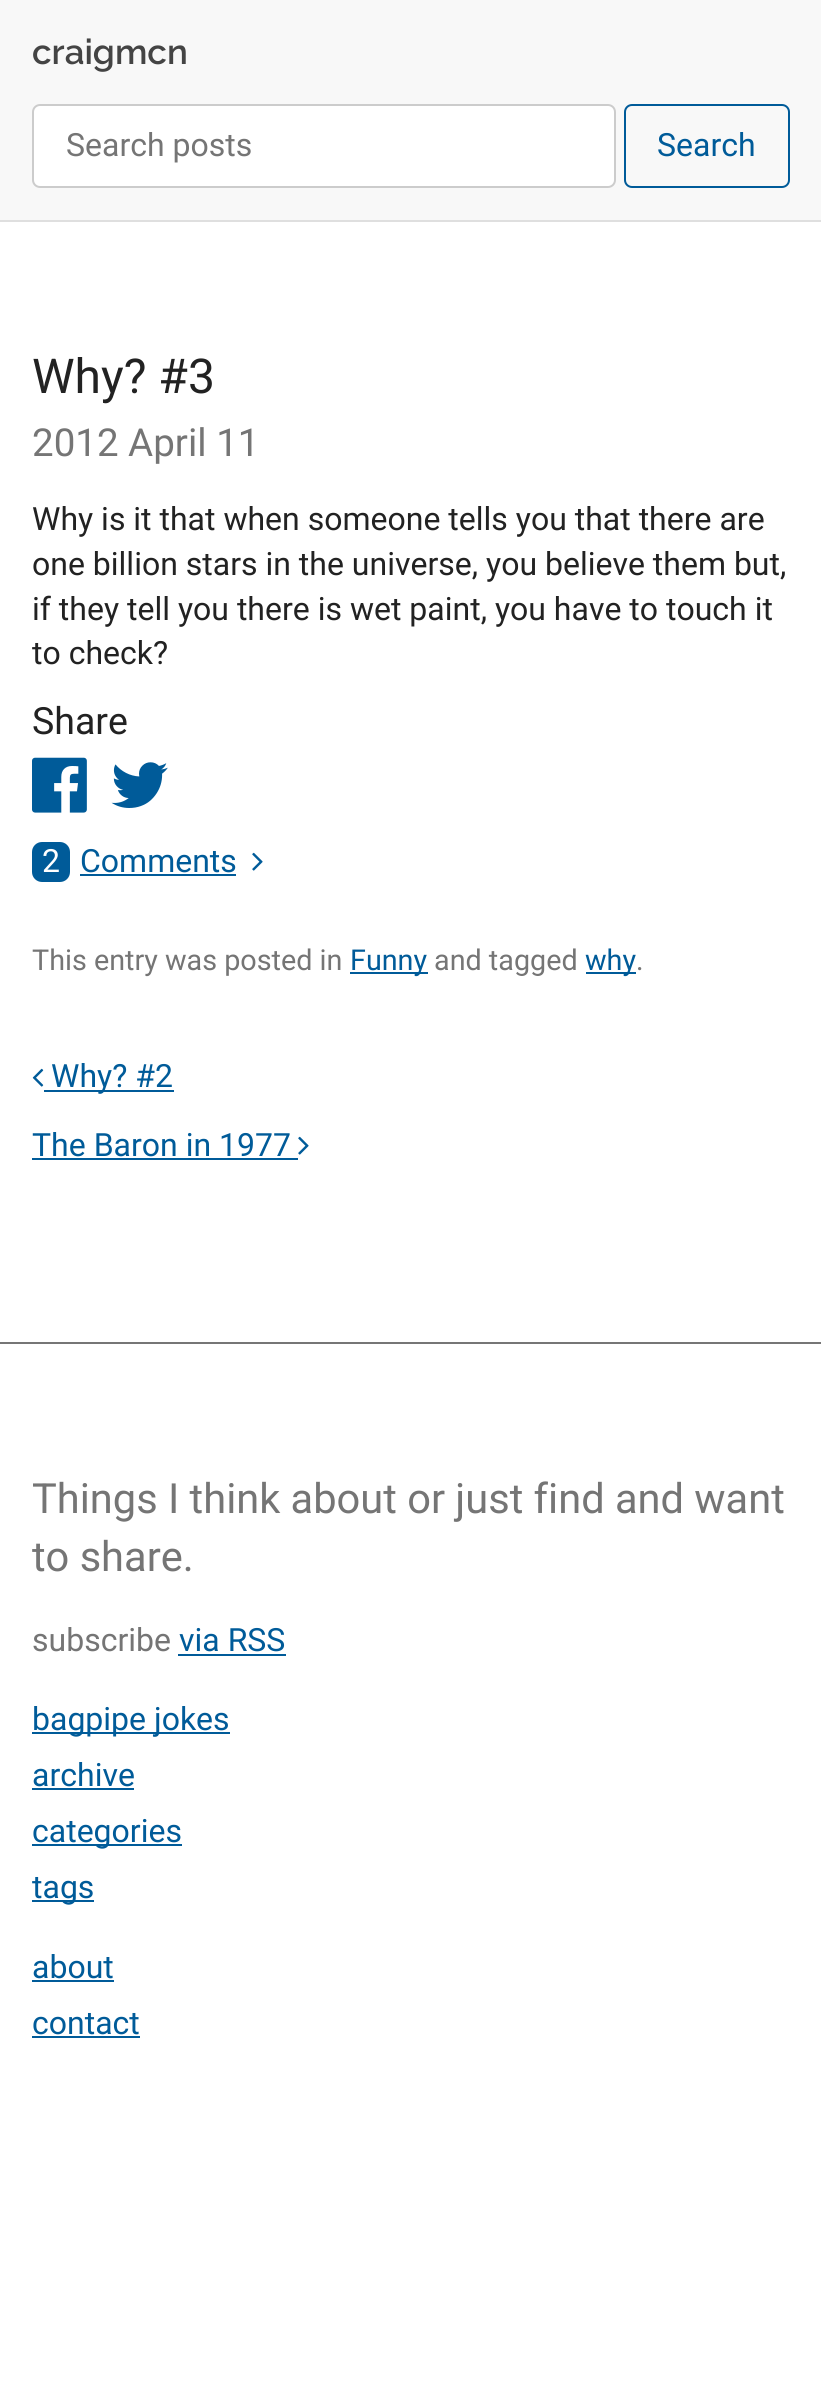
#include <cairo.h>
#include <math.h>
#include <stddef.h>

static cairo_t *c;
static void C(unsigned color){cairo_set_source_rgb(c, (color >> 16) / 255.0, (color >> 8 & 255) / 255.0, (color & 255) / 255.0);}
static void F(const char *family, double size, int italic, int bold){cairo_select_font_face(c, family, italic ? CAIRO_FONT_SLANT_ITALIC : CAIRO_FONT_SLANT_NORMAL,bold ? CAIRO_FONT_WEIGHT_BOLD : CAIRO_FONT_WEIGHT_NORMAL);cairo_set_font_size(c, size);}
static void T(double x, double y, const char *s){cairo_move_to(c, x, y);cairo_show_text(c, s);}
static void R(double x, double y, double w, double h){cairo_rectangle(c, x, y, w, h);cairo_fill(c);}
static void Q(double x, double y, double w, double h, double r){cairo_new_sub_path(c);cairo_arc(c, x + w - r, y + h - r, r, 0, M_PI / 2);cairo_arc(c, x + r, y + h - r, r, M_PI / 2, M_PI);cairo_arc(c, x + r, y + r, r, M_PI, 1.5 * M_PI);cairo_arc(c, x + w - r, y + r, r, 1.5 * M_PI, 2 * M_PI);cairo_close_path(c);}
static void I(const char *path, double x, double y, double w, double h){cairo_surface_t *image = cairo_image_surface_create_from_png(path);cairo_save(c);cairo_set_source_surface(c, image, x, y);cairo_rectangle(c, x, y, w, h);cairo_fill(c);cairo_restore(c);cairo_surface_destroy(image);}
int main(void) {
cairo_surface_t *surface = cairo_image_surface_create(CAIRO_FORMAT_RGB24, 821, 2388);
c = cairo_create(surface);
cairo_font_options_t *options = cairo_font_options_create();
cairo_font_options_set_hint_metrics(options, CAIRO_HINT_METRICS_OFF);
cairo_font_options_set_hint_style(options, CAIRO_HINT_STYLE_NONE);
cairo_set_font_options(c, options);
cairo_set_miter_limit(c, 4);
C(0xffffff);
cairo_paint(c);
C(0xf8f8f8);
R(0,0,821,220);
C(0xdfdfdf);
R(0,220,821,2);
F("Raleway Thin",35,0,0);
C(0x444444);
T(32,64,"craigmcn");
C(0xffffff);
Q(33,105,582,82,7);
cairo_fill_preserve(c);
C(0xcccccc);
cairo_stroke(c);
F("Roboto",32,0,0);
C(0x757575);
T(66,156,"Search posts");
Q(625,105,164,82,7);
C(0x005b99);
cairo_stroke(c);
T(657,156,"Search");
F("Roboto",48,0,0);
C(0x222222);
T(32,393,"Why? #3");
F("Roboto",38.5,0,0);
C(0x757575);
T(32,456,"2012 April 11");
F("Roboto",32,0,0);
C(0x222222);
T(32,530,"Why is it that when someone tells you that there are");
T(32,575,"one billion stars in the universe, you believe them but,");
T(32,620,"if they tell you there is wet paint, you have to touch it");
T(32,664,"to check?");
F("Roboto",37.5,0,0);
T(32,734,"Share");
I("1.png",32,757,55,56);
I("2.png",111,762,57,46);
C(0x005b99);
Q(32,842,38,40,10);
cairo_fill(c);
F("Roboto",32,0,0);
C(0xffffff);
T(42,872,"2");
C(0x005b99);
T(80,872,"Comments");
R(80,874,156,2);
I("3.png",252,852,11,19);
F("Roboto",28.75,0,0);
C(0x757575);
T(32,970,"This entry was posted in");
C(0x005b99);
R(350,972,78,2);
T(350,970,"Funny");
C(0x757575);
T(434,970,"and tagged");
C(0x005b99);
R(586,972,50,2);
T(585,970,"why");
C(0x757575);
T(636,970,".");
I("4.png",32,1068,12,19);
C(0x005b99);
R(44,1090,130,2);
F("Roboto",32,0,0);
T(51,1087,"Why? #2");
T(32,1156,"The Baron in 1977");
R(32,1158,266,2);
I("3.png",298,1136,11,19);
C(0x767676);
R(0,1342,821,2);
F("Roboto",41.6,0,0);
C(0x757575);
T(32,1513,"Things I think about or just find and want");
T(32,1571,"to share.");
F("Roboto",32,0,0);
T(32,1651,"subscribe");
C(0x005b99);
T(179,1651,"via RSS");
R(178,1654,108,2);
R(32,1732,198,2);
T(32,1730,"bagpipe jokes");
T(32,1786,"archive");
R(32,1788,102,2);
R(32,1844,150,2);
T(32,1842,"categories");
R(32,1900,62,2);
T(32,1898,"tags");
T(32,1978,"about");
R(32,1980,82,2);
T(32,2034,"contact");
R(32,2036,108,2);
cairo_surface_write_to_png(surface, "o.png");
cairo_font_options_destroy(options);
cairo_destroy(c);
cairo_surface_destroy(surface);
return 0;
}
